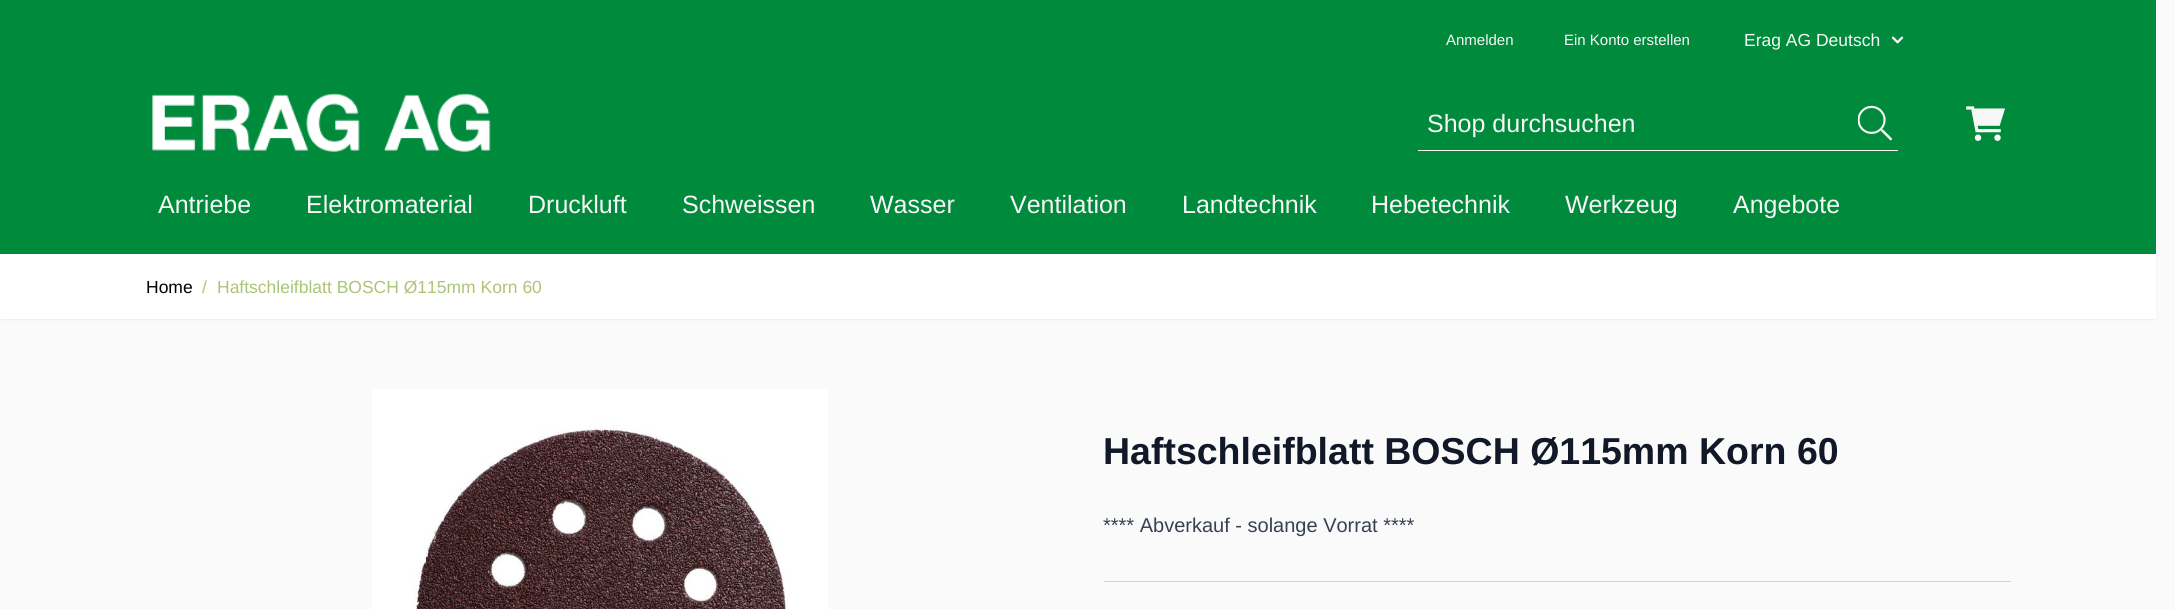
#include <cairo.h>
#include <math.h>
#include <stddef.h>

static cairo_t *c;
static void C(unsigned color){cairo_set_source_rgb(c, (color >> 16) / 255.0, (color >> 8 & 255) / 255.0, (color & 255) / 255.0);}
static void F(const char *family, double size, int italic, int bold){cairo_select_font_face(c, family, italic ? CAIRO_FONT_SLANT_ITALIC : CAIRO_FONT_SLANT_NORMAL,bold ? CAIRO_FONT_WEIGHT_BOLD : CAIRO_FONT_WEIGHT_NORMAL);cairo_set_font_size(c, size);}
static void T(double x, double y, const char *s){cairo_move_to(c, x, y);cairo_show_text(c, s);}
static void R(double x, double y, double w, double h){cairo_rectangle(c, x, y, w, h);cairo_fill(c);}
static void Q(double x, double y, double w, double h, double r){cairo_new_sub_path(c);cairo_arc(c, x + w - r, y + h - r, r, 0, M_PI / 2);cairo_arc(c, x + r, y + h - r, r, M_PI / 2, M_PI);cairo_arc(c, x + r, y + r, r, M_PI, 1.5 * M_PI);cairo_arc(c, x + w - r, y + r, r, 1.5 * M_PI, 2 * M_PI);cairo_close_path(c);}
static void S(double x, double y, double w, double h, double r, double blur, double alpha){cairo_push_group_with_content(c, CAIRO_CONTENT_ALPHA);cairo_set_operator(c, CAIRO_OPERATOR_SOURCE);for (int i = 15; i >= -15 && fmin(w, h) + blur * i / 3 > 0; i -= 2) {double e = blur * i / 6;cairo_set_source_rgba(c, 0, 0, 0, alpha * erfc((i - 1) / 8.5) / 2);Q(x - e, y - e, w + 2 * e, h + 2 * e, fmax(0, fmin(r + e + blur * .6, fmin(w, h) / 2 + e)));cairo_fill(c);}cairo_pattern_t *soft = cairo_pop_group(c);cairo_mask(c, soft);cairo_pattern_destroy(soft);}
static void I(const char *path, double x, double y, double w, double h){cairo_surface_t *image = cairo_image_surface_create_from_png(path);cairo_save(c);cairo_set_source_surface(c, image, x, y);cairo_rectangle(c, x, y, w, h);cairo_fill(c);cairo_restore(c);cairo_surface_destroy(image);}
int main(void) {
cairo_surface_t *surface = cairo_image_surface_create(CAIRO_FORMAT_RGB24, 2175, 609);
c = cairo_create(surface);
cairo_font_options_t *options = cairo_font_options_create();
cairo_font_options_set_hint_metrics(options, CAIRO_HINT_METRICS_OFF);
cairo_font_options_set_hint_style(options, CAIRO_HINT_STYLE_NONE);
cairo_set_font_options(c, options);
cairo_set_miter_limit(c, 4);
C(0xfafafa);
cairo_paint(c);
C(0x008a3c);
R(0,0,2156,254);
F("Liberation Sans",15,0,0);
C(0xf7f7f7);
T(1446,45,"Anmelden");
T(1564,45,"Ein Konto erstellen");
F("Liberation Sans",17.5,0,0);
T(1744,46,"Erag AG Deutsch");
I("1.png",1891,36,13,8);
I("2.png",152,93,339,59);
C(0xffffff);
R(1418,150,480,1);
F("Liberation Sans",25,0,0);
C(0xf7f7f7);
T(1427,132,"Shop durchsuchen");
I("3.png",1858,105,35,36);
I("4.png",1966,106,39,35);
T(158,213,"Antriebe");
T(306,213,"Elektromaterial");
T(528,213,"Druckluft");
T(682,213,"Schweissen");
T(870,213,"Wasser");
T(1010,213,"Ventilation");
T(1182,213,"Landtechnik");
T(1371,213,"Hebetechnik");
T(1565,213,"Werkzeug");
T(1733,213,"Angebote");
C(0x000000);
S(0,255,2156,65,0,1,.05);
C(0xffffff);
R(0,254,2156,65);
F("Liberation Sans",17.5,0,0);
C(0x000000);
T(146,293,"Home");
C(0xacc476);
T(202,293,"/");
T(217,293,"Haftschleifblatt BOSCH Ø115mm Korn 60");
I("5.png",372,389,456,220);
F("Liberation Sans",37.5,0,1);
C(0x111827);
T(1103,464,"Haftschleifblatt BOSCH Ø115mm Korn 60");
F("Liberation Sans",20,0,0);
C(0x374151);
T(1103,532,"**** Abverkauf - solange Vorrat ****");
C(0xd1d5db);
R(1104,581,907,1);
cairo_surface_write_to_png(surface, "o.png");
cairo_font_options_destroy(options);
cairo_destroy(c);
cairo_surface_destroy(surface);
return 0;
}
